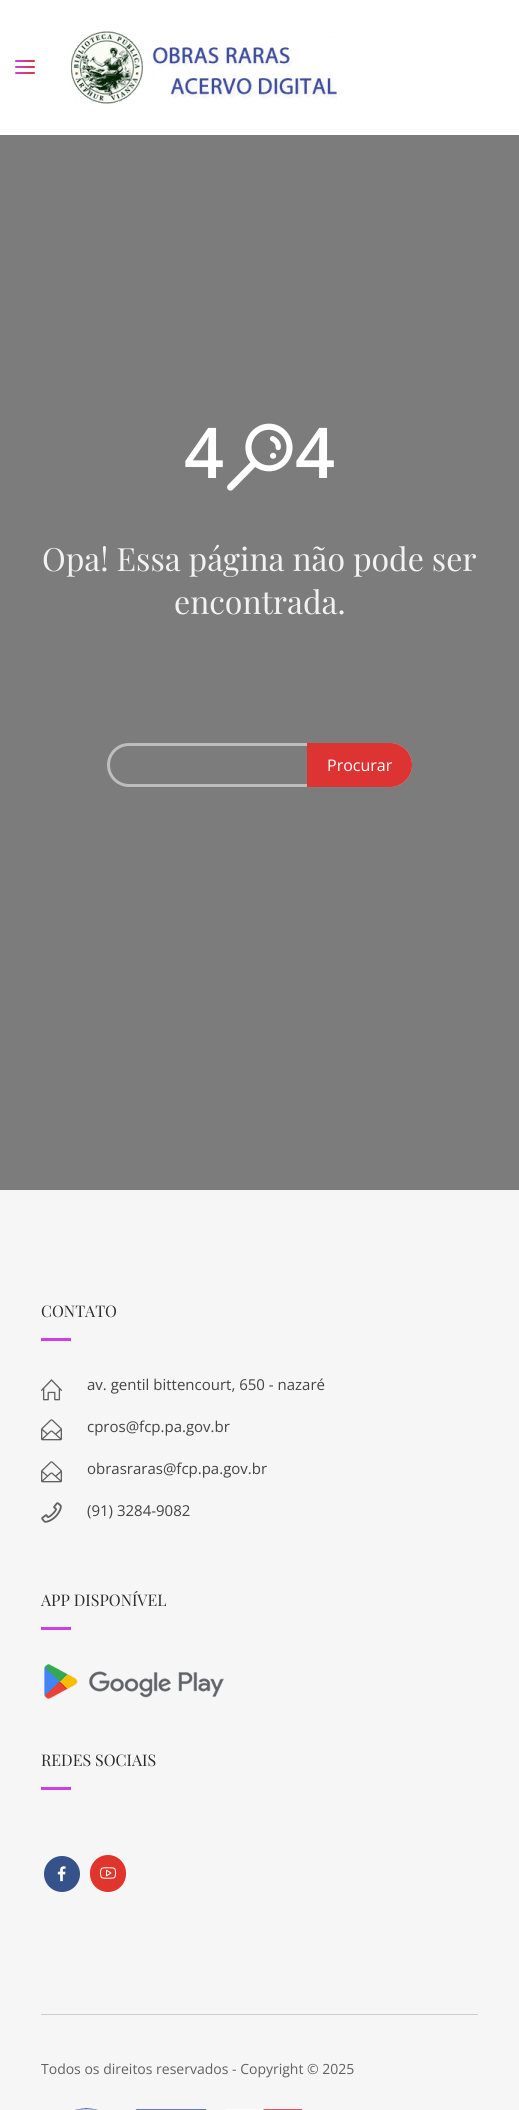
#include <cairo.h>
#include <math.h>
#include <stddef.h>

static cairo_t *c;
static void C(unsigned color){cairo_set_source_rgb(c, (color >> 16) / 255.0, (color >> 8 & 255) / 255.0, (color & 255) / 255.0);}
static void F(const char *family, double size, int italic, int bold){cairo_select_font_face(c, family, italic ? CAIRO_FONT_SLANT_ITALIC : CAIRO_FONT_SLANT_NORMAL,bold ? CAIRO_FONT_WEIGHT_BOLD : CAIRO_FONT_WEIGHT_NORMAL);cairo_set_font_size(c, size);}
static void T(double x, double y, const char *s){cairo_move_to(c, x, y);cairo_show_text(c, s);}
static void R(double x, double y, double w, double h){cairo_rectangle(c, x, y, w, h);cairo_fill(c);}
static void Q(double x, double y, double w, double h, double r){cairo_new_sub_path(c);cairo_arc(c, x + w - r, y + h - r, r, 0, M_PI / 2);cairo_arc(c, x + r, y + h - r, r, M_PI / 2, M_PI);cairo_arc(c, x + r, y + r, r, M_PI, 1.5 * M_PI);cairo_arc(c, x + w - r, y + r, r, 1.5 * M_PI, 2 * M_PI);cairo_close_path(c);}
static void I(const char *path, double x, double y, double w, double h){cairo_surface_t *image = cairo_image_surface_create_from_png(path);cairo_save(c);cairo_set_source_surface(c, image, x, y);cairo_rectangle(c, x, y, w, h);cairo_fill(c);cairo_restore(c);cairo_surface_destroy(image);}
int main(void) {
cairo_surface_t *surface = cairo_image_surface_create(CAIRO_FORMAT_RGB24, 519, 2110);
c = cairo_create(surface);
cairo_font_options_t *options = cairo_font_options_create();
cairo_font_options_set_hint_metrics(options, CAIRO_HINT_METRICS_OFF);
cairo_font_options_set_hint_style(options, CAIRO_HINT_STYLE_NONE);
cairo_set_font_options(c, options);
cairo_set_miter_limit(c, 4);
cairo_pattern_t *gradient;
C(0xf6f6f6);
cairo_paint(c);
C(0xffffff);
R(0,0,519,135);
gradient = cairo_pattern_create_linear(35,67,15,67);
cairo_pattern_add_color_stop_rgba(gradient,0,0.867,0.2,0.2,1);
cairo_pattern_add_color_stop_rgba(gradient,1,0.804,0.251,0.902,1);
cairo_set_source(c,gradient);
cairo_pattern_destroy(gradient);
Q(15,66,20,2,1);
cairo_fill(c);
gradient = cairo_pattern_create_linear(35,61,15,61);
cairo_pattern_add_color_stop_rgba(gradient,0,0.867,0.2,0.2,1);
cairo_pattern_add_color_stop_rgba(gradient,1,0.804,0.251,0.902,1);
cairo_set_source(c,gradient);
cairo_pattern_destroy(gradient);
Q(15,60,20,2,1);
cairo_fill(c);
gradient = cairo_pattern_create_linear(35,73,15,73);
cairo_pattern_add_color_stop_rgba(gradient,0,0.867,0.2,0.2,1);
cairo_pattern_add_color_stop_rgba(gradient,1,0.804,0.251,0.902,1);
cairo_set_source(c,gradient);
cairo_pattern_destroy(gradient);
Q(15,72,20,2,1);
cairo_fill(c);
I("1.png",71,31,266,73);
C(0x7c7c7c);
R(0,135,519,1055);
F("Open Sans SemiBold",70,0,0);
C(0xffffff);
T(184,478,"4");
I("2.png",227,423,66,68);
T(295,478,"4");
F("Playfair Display",32,0,0);
C(0xf2f2f2);
T(42,571,"Opa! Essa página não pode ser");
T(174,614,"encontrada.");
Q(108.5,744.5,302,41,20.5);
C(0xbdbdbd);
cairo_set_line_width(c,3);
cairo_stroke(c);
C(0xdd3333);
cairo_new_path(c);
cairo_move_to(c,307,743);
cairo_line_to(c,390,743);
cairo_curve_to(c,402,743,412,753,412,765);
cairo_curve_to(c,412,777,402,787,390,787);
cairo_line_to(c,307,787);
cairo_close_path(c);
cairo_fill(c);
F("Open Sans",16,0,0);
C(0xffffff);
T(327,771,"Procurar");
F("Playfair Display",16,0,0);
C(0x2b2b2b);
T(41,1317,"CONTATO");
C(0xcd40e6);
R(41,1338,30,3);
I("3.png",41,1379,21,22);
F("Open Sans",15,0,0);
C(0x444444);
T(87,1390,"av. gentil bittencourt, 650 - nazaré");
I("4.png",41,1419,21,22);
T(87,1432,"cpros@fcp.pa.gov.br");
I("4.png",41,1461,21,22);
T(87,1474,"obrasraras@fcp.pa.gov.br");
I("5.png",41,1502,21,21);
T(87,1516,"(91) 3284-9082");
F("Playfair Display",16,0,0);
C(0x2b2b2b);
T(41,1606,"APP DISPONÍVEL");
C(0xcd40e6);
R(41,1627,30,3);
I("6.png",44,1664,180,35);
C(0x2b2b2b);
T(41,1766,"REDES SOCIAIS");
C(0xcd40e6);
R(41,1787,30,3);
C(0x36528b);
cairo_new_path(c);
cairo_arc(c,62,1874,18,0,2 * M_PI);
cairo_fill(c);
I("7.png",57,1866,9,16);
C(0xdf352c);
Q(90,1855,36,37,18);
cairo_fill(c);
I("8.png",100,1867,16,12);
C(0xcccccc);
R(41,2014,437,1);
F("Open Sans",14,0,0);
C(0x616161);
T(41,2074,"Todos os direitos reservados - Copyright © 2025");
I("9.png",75,2108,228,2);
cairo_surface_write_to_png(surface, "o.png");
cairo_font_options_destroy(options);
cairo_destroy(c);
cairo_surface_destroy(surface);
return 0;
}
